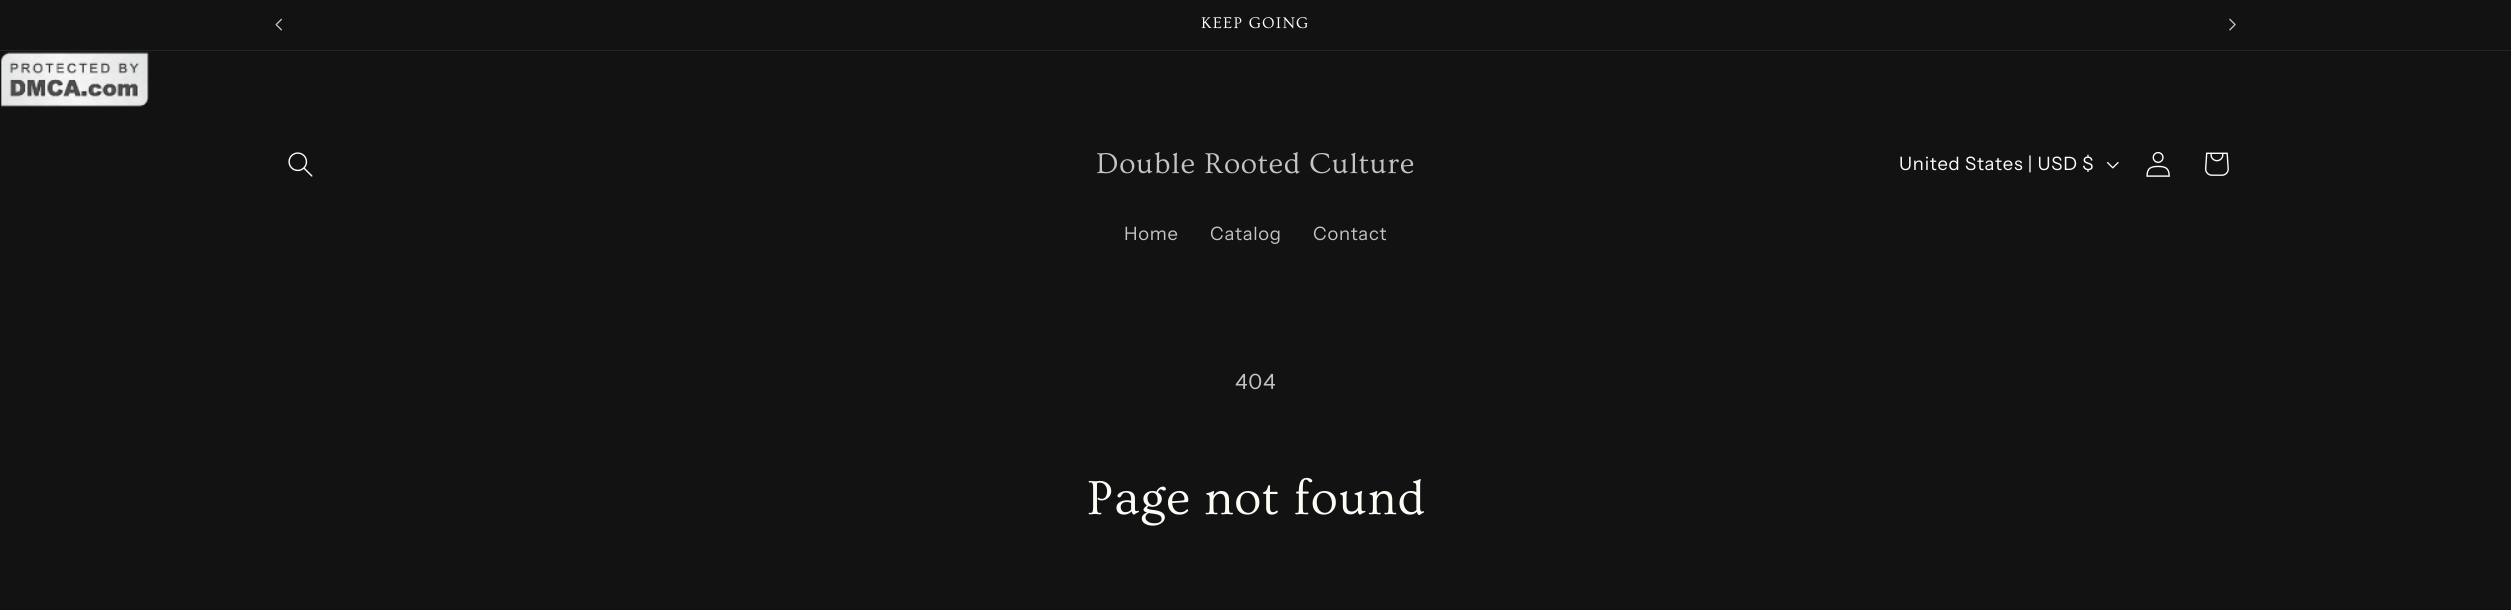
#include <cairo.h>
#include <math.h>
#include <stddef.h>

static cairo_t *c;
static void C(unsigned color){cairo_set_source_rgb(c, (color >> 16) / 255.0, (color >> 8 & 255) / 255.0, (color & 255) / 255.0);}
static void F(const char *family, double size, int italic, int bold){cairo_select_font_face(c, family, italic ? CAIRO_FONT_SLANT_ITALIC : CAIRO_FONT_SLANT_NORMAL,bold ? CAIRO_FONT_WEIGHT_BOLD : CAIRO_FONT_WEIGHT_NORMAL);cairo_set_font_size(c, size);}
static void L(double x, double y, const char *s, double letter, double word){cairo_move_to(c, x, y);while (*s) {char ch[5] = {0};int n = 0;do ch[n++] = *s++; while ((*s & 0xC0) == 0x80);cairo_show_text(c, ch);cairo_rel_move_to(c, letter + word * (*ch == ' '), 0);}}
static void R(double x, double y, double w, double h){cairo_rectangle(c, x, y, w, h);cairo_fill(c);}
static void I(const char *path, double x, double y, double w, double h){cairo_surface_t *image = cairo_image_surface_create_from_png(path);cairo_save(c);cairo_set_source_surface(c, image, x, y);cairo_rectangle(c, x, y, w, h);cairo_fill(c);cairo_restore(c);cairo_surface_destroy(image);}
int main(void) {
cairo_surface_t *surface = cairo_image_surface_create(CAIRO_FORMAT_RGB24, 2511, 610);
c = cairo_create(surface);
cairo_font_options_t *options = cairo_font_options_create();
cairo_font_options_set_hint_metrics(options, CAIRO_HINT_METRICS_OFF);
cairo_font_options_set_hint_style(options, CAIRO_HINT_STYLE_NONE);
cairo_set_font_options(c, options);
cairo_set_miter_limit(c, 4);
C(0x121212);
cairo_paint(c);
C(0x252525);
R(0,50,2511,1);
I("1.png",275,18,7,13);
F("Ovo",16.25,0,0);
C(0xffffff);
L(1201,28,"KEEP GOING",1.25,0);
I("2.png",2229,18,7,13);
I("3.png",1,52,148,55);
I("4.png",288,152,25,25);
F("Ovo",30,0,0);
C(0xc4c4c4);
L(1096,173,"Double Rooted Culture",.75,0);
F("Instrument Sans",18.4,0,0);
C(0xffffff);
L(1899,170,"United States | USD $",.75,0);
I("5.png",2106,162,13,7);
I("6.png",2146,151,24,26);
I("7.png",2205,152,24,24);
C(0xc4c4c4);
L(1124,240,"Home",.75,0);
L(1210,240,"Catalog",.75,0);
L(1313,240,"Contact",.75,0);
F("Instrument Sans",21,0,0);
C(0xc2c1bc);
L(1235,389,"404",.75,0);
F("Ovo",50,0,0);
C(0xfcfbf5);
L(1087,514,"Page not found",.75,0);
cairo_surface_write_to_png(surface, "o.png");
cairo_font_options_destroy(options);
cairo_destroy(c);
cairo_surface_destroy(surface);
return 0;
}
